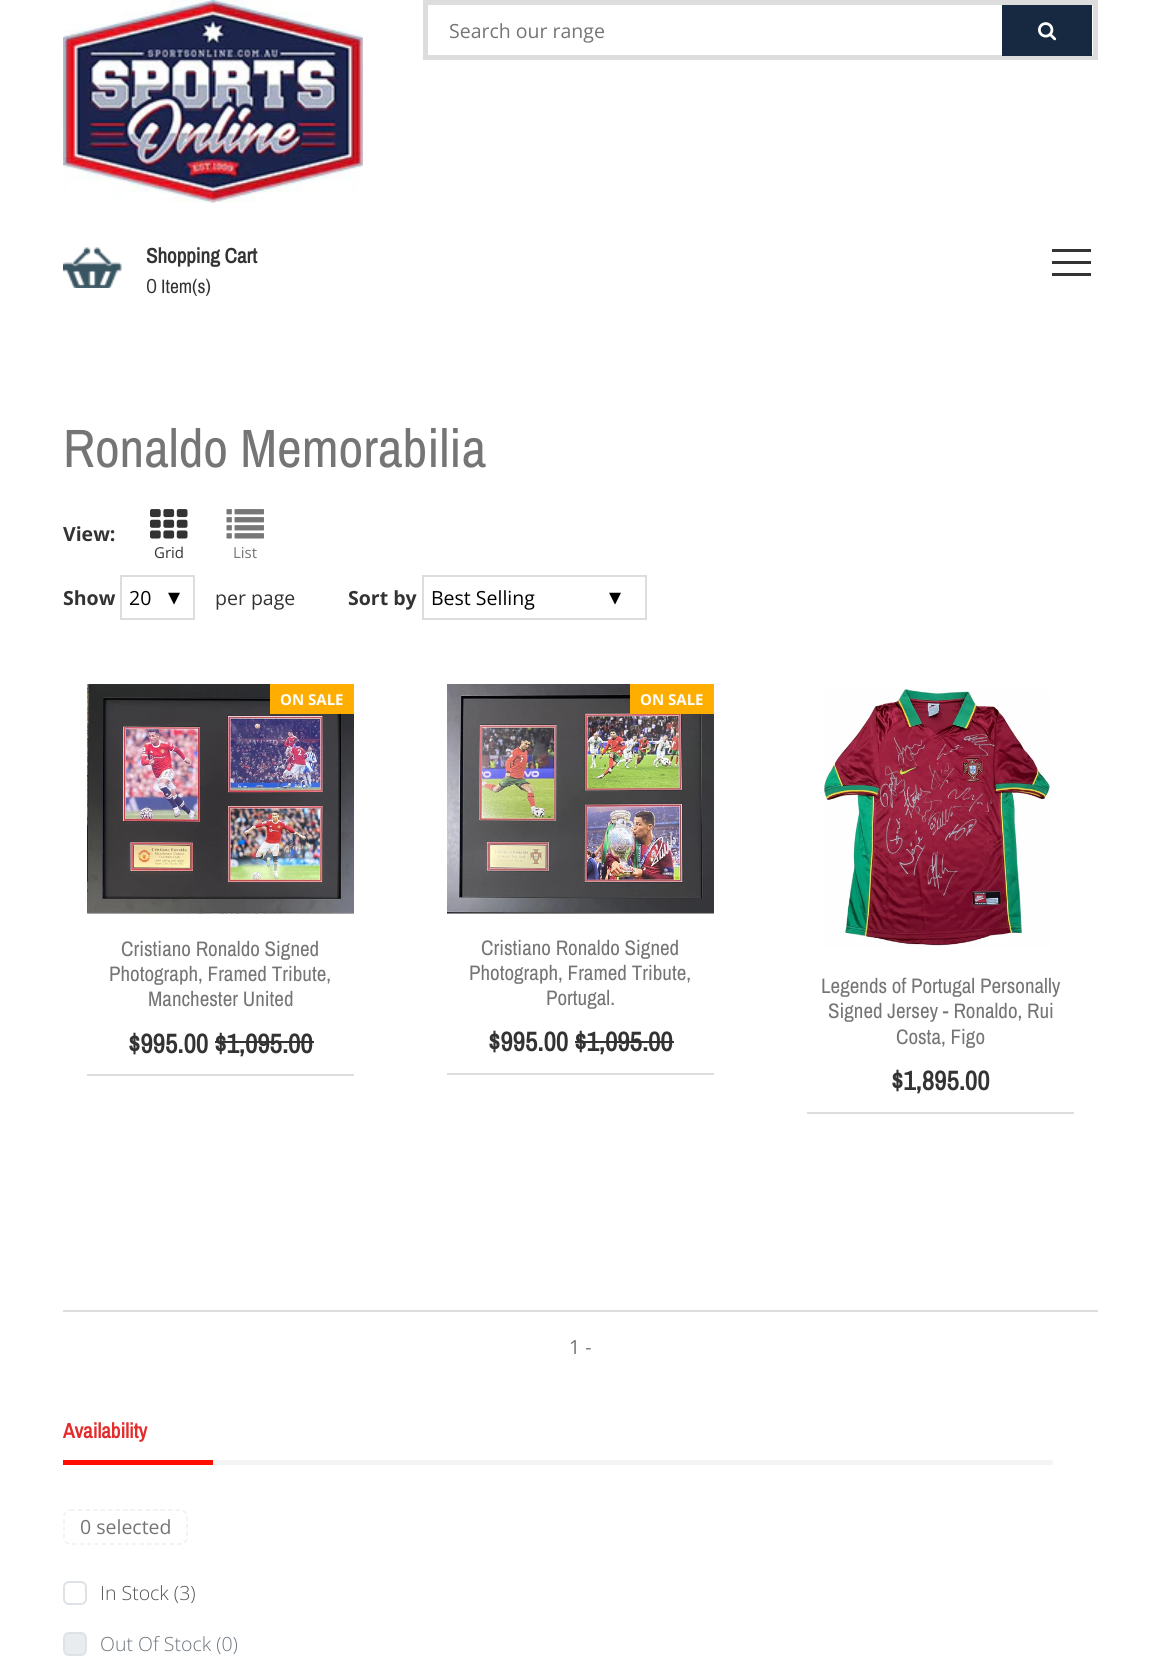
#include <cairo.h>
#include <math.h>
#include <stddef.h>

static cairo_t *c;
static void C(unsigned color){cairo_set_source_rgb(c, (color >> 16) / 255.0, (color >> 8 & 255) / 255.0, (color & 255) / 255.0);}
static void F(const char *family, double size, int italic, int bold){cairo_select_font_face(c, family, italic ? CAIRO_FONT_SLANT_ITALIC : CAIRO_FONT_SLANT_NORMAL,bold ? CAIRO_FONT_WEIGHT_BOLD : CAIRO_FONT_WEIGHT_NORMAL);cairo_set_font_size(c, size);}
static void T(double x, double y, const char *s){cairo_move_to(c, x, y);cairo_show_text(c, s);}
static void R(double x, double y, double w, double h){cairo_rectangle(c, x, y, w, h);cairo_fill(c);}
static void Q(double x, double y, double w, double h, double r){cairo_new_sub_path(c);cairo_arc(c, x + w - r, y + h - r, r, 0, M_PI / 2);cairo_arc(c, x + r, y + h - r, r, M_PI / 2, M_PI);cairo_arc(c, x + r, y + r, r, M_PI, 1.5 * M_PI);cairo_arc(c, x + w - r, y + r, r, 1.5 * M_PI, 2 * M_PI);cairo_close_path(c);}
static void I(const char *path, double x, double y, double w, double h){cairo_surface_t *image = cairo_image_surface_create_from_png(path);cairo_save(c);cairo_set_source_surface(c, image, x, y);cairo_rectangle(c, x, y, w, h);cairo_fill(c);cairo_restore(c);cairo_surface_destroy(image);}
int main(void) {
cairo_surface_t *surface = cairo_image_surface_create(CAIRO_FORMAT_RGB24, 1161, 1673);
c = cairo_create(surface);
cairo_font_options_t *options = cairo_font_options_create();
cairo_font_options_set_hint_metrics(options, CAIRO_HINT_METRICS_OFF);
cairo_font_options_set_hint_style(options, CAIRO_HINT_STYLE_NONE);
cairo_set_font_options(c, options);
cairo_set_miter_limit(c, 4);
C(0xffffff);
cairo_paint(c);
I("1.png",63,0,300,203);
cairo_rectangle(c,425.5,2.5,670,55);
C(0xdddddd);
cairo_set_line_width(c,5);
cairo_stroke(c);
F("Open Sans",19.5,0,0);
C(0x757575);
T(449,38,"Search our range");
C(0x172941);
R(1002,5,90,51);
I("2.png",1038,22,19,19);
I("3.png",63,247,59,41);
F("Archivo Narrow",21,0,1);
C(0x333333);
T(146,263,"Shopping Cart");
F("Open Sans",19.5,0,0);
T(146,293,"0");
F("Archivo Narrow",19.5,0,0);
T(161,293,"Item(s)");
R(1052,261,39,3);
R(1052,249,39,3);
R(1052,273,39,3);
F("Archivo Narrow",54,0,0);
C(0x757575);
T(63,467,"Ronaldo Memorabilia");
F("Open Sans",19.5,0,1);
C(0x333333);
T(63,541,"View:");
I("4.png",150,509,38,30);
F("Open Sans",15,0,0);
T(154,558,"Grid");
I("5.png",226,509,38,30);
C(0x757575);
T(233,558,"List");
F("Open Sans",19.5,0,1);
C(0x333333);
T(63,605,"Show");
I("6.png",168,592,12,13);
cairo_rectangle(c,121,576,73,43);
C(0xdddddd);
cairo_set_line_width(c,2);
cairo_stroke(c);
F("Open Sans",19.5,0,0);
C(0x000000);
T(129,605,"20");
C(0x333333);
T(215,605,"per page");
F("Open Sans",19.5,0,1);
T(348,605,"Sort by");
I("6.png",609,592,12,13);
cairo_rectangle(c,423,576,223,43);
C(0xdddddd);
cairo_stroke(c);
F("Open Sans",19.5,0,0);
C(0x000000);
T(431,605,"Best Selling");
I("7.png",87,684,267,230);
C(0xffae00);
R(270,684,84,30);
F("Open Sans",15,0,1);
C(0xffffff);
T(280,705,"ON SALE");
F("Archivo Narrow",21,0,0);
C(0x757575);
T(121,956,"Cristiano Ronaldo Signed");
T(109,981,"Photograph, Framed Tribute,");
T(148,1006,"Manchester United");
C(0xdddddd);
R(87,1074,267,2);
F("Archivo Narrow",27,0,1);
C(0x333333);
T(128,1053,"$995.00 $1,095.00");
R(215,1041,99,2);
I("8.png",447,684,267,230);
C(0xffae00);
R(630,684,84,30);
F("Open Sans",15,0,1);
C(0xffffff);
T(640,705,"ON SALE");
F("Archivo Narrow",21,0,0);
C(0x757575);
T(481,955,"Cristiano Ronaldo Signed");
T(469,980,"Photograph, Framed Tribute,");
T(546,1005,"Portugal.");
C(0xdddddd);
R(447,1073,267,2);
F("Archivo Narrow",27,0,1);
C(0x333333);
T(488,1051,"$995.00 $1,095.00");
R(575,1041,99,2);
I("9.png",824,689,226,258);
F("Archivo Narrow",21,0,0);
C(0x757575);
T(821,993,"Legends of Portugal Personally");
T(828,1018,"Signed Jersey - Ronaldo, Rui");
T(896,1044,"Costa, Figo");
C(0xdddddd);
R(807,1112,267,2);
F("Archivo Narrow",27,0,1);
C(0x333333);
T(891,1090,"$1,895.00");
C(0xdddddd);
R(63,1310,1035,2);
F("Open Sans",19.5,0,0);
C(0x757575);
T(569,1354,"1 -");
F("Archivo Narrow",21,0,1);
C(0xe32c2b);
T(63,1438,"Availability");
C(0xff0e00);
R(63,1460,150,5);
C(0xf4f4f4);
R(213,1460,840,5);
cairo_new_path(c);
cairo_move_to(c,70.5,1510);
cairo_line_to(c,180,1510);
cairo_curve_to(c,183.5,1510,187,1513,187,1516.5);
cairo_line_to(c,187,1537.5);
cairo_curve_to(c,187,1541,183.5,1544,180,1544);
cairo_line_to(c,70.5,1544);
cairo_curve_to(c,67,1544,64,1541,64,1537.5);
cairo_line_to(c,64,1516.5);
cairo_curve_to(c,64,1513,67,1510,70.5,1510);
cairo_close_path(c);
C(0xefefef);
cairo_set_line_width(c,1.5);
cairo_set_dash(c,(double[]){4.5,3},2,0);
cairo_stroke(c);
F("Open Sans",19.5,0,0);
C(0x757575);
T(80,1534,"0 selected");
Q(64,1582,22,22,5);
C(0xdee2e6);
cairo_set_line_width(c,2);
cairo_set_dash(c,NULL,0,0);
cairo_stroke(c);
F("Open Sans Light",19.5,0,0);
C(0x555555);
T(100,1600,"In Stock (3)");
C(0xe9ecef);
Q(64,1633,22,22,5);
cairo_fill_preserve(c);
C(0xdee2e6);
cairo_stroke(c);
C(0x6c757d);
T(100,1651,"Out Of Stock (0)");
cairo_surface_write_to_png(surface, "o.png");
cairo_font_options_destroy(options);
cairo_destroy(c);
cairo_surface_destroy(surface);
return 0;
}
